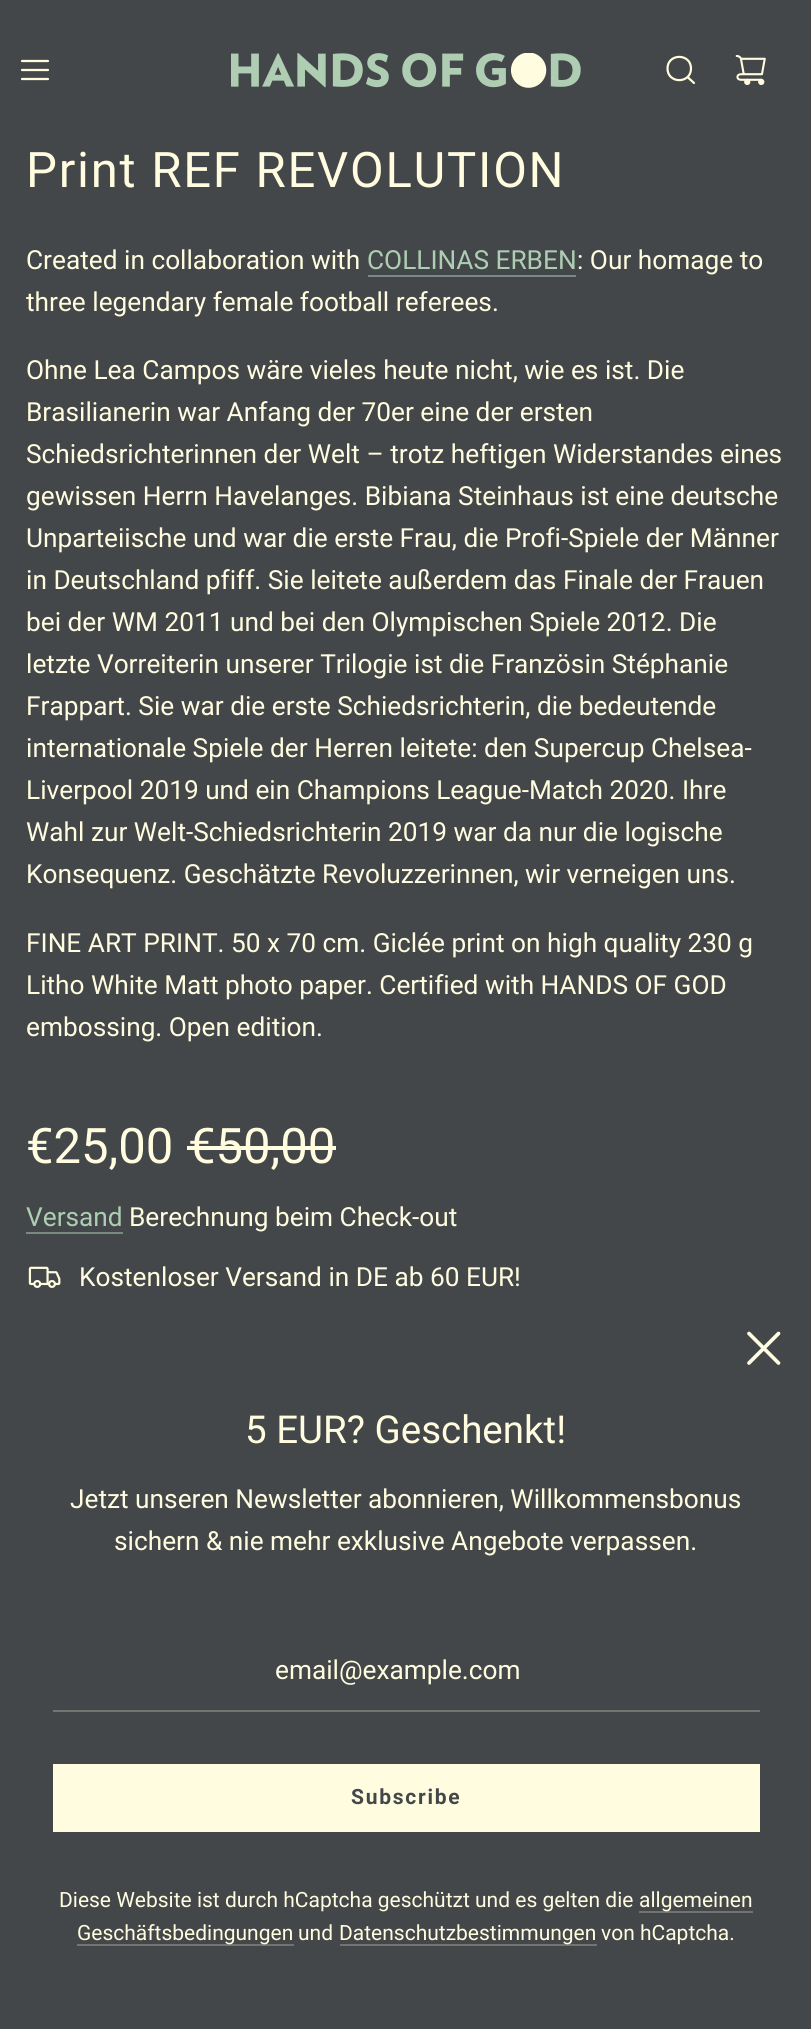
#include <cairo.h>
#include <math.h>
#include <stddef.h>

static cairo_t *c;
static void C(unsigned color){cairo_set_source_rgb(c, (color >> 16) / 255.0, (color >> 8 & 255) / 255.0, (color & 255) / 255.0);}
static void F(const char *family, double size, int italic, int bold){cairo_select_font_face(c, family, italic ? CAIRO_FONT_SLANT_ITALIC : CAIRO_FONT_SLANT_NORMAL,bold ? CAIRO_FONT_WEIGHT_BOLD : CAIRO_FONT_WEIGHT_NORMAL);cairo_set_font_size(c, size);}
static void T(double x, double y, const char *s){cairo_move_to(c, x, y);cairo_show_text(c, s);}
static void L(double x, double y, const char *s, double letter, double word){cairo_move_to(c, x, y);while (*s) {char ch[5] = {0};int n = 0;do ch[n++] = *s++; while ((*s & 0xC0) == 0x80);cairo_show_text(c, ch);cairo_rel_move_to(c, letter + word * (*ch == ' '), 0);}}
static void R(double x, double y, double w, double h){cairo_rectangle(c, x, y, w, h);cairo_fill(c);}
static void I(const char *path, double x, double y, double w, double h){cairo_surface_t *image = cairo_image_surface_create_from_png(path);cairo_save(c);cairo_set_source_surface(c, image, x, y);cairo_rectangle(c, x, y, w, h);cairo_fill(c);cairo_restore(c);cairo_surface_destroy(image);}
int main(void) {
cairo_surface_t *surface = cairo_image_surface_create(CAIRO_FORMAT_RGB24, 811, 2029);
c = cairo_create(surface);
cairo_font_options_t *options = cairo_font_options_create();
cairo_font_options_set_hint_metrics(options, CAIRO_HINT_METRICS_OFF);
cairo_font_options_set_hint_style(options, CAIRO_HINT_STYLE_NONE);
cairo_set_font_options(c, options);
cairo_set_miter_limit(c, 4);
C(0x444749);
cairo_paint(c);
cairo_new_path(c);
cairo_move_to(c,22,61);
cairo_line_to(c,48,61);
cairo_move_to(c,22,70);
cairo_line_to(c,48,70);
cairo_move_to(c,22,79);
cairo_line_to(c,48,79);
C(0xfffcdf);
cairo_set_line_width(c,2.2);
cairo_set_line_cap(c,CAIRO_LINE_CAP_ROUND);
cairo_set_line_join(c,CAIRO_LINE_JOIN_ROUND);
cairo_stroke(c);
I("1.png",231,53,350,35);
cairo_new_path(c);
cairo_move_to(c,688,77.5);
cairo_line_to(c,694,83);
cairo_move_to(c,667.5,68.5);
cairo_curve_to(c,667.5,84,691,84,691,68.5);
cairo_curve_to(c,691,53,667.5,53,667.5,68.5);
cairo_close_path(c);
cairo_stroke(c);
I("2.png",735,55,31,30);
F("Roboto",49,0,0);
L(26,187,"Print REF REVOLUTION",1.75,0);
F("Roboto",26.25,0,0);
T(26,269,"Created in collaboration with");
C(0xaeceb4);
T(367,269,"COLLINAS ERBEN");
C(0x798b7f);
R(368,275,208,2);
C(0xfffcdf);
T(577,269,": Our homage to");
T(26,311,"three legendary female football referees.");
T(26,379,"Ohne Lea Campos wäre vieles heute nicht, wie es ist. Die");
T(26,421,"Brasilianerin war Anfang der 70er eine der ersten");
T(26,463,"Schiedsrichterinnen der Welt – trotz heftigen Widerstandes eines");
T(26,505,"gewissen Herrn Havelanges. Bibiana Steinhaus ist eine deutsche");
T(26,547,"Unparteiische und war die erste Frau, die Profi-Spiele der Männer");
T(26,589,"in Deutschland pfiff. Sie leitete außerdem das Finale der Frauen");
T(26,631,"bei der WM 2011 und bei den Olympischen Spiele 2012. Die");
T(26,673,"letzte Vorreiterin unserer Trilogie ist die Französin Stéphanie");
T(26,715,"Frappart. Sie war die erste Schiedsrichterin, die bedeutende");
T(26,757,"internationale Spiele der Herren leitete: den Supercup Chelsea-");
T(26,799,"Liverpool 2019 und ein Champions League-Match 2020. Ihre");
T(26,841,"Wahl zur Welt-Schiedsrichterin 2019 war da nur die logische");
T(26,883,"Konsequenz. Geschätzte Revoluzzerinnen, wir verneigen uns.");
T(26,952,"FINE ART PRINT. 50 x 70 cm. Giclée print on high quality 230 g");
T(26,994,"Litho White Matt photo paper. Certified with HANDS OF GOD");
T(26,1036,"embossing. Open edition.");
F("Roboto",49,0,0);
T(26,1163,"€25,00");
T(188,1163,"€50,00");
R(187,1146,149,4);
F("Roboto",26.25,0,0);
C(0xaeceb4);
T(26,1226,"Versand");
C(0x798b7f);
R(26,1232,97,2);
C(0xfffcdf);
T(129,1226,"Berechnung beim Check-out");
I("3.png",28,1266,33,22);
T(79,1286,"Kostenloser Versand in DE ab 60 EUR!");
cairo_new_path(c);
cairo_move_to(c,778.5,1333.5);
cairo_line_to(c,749,1363);
cairo_move_to(c,749,1333.5);
cairo_line_to(c,778.5,1363);
cairo_set_line_width(c,3.7);
cairo_stroke(c);
F("Roboto",38.5,0,0);
T(245,1443,"5 EUR? Geschenkt!");
F("Roboto",26.25,0,0);
T(70,1508,"Jetzt unseren Newsletter abonnieren, Willkommensbonus");
T(114,1550,"sichern & nie mehr exklusive Angebote verpassen.");
C(0x73746f);
R(53,1710,707,2);
C(0xfffcdf);
T(275,1679,"email@example.com");
R(53,1764,707,68);
F("Roboto",21,0,1);
C(0x444749);
L(351,1804,"Subscribe",1.75,0);
F("Roboto",21,0,0);
C(0xfffcdf);
T(59,1907,"Diese Website ist durch hCaptcha geschützt und es gelten die");
C(0x73746f);
R(639,1911,114,2);
C(0xfffcdf);
T(639,1907,"allgemeinen");
C(0x73746f);
R(77,1944,217,2);
C(0xfffcdf);
T(77,1940,"Geschäftsbedingungen");
T(298,1940,"und");
C(0x73746f);
R(340,1944,257,2);
C(0xfffcdf);
T(339,1940,"Datenschutzbestimmungen");
T(601,1940,"von hCaptcha.");
cairo_surface_write_to_png(surface, "o.png");
cairo_font_options_destroy(options);
cairo_destroy(c);
cairo_surface_destroy(surface);
return 0;
}
